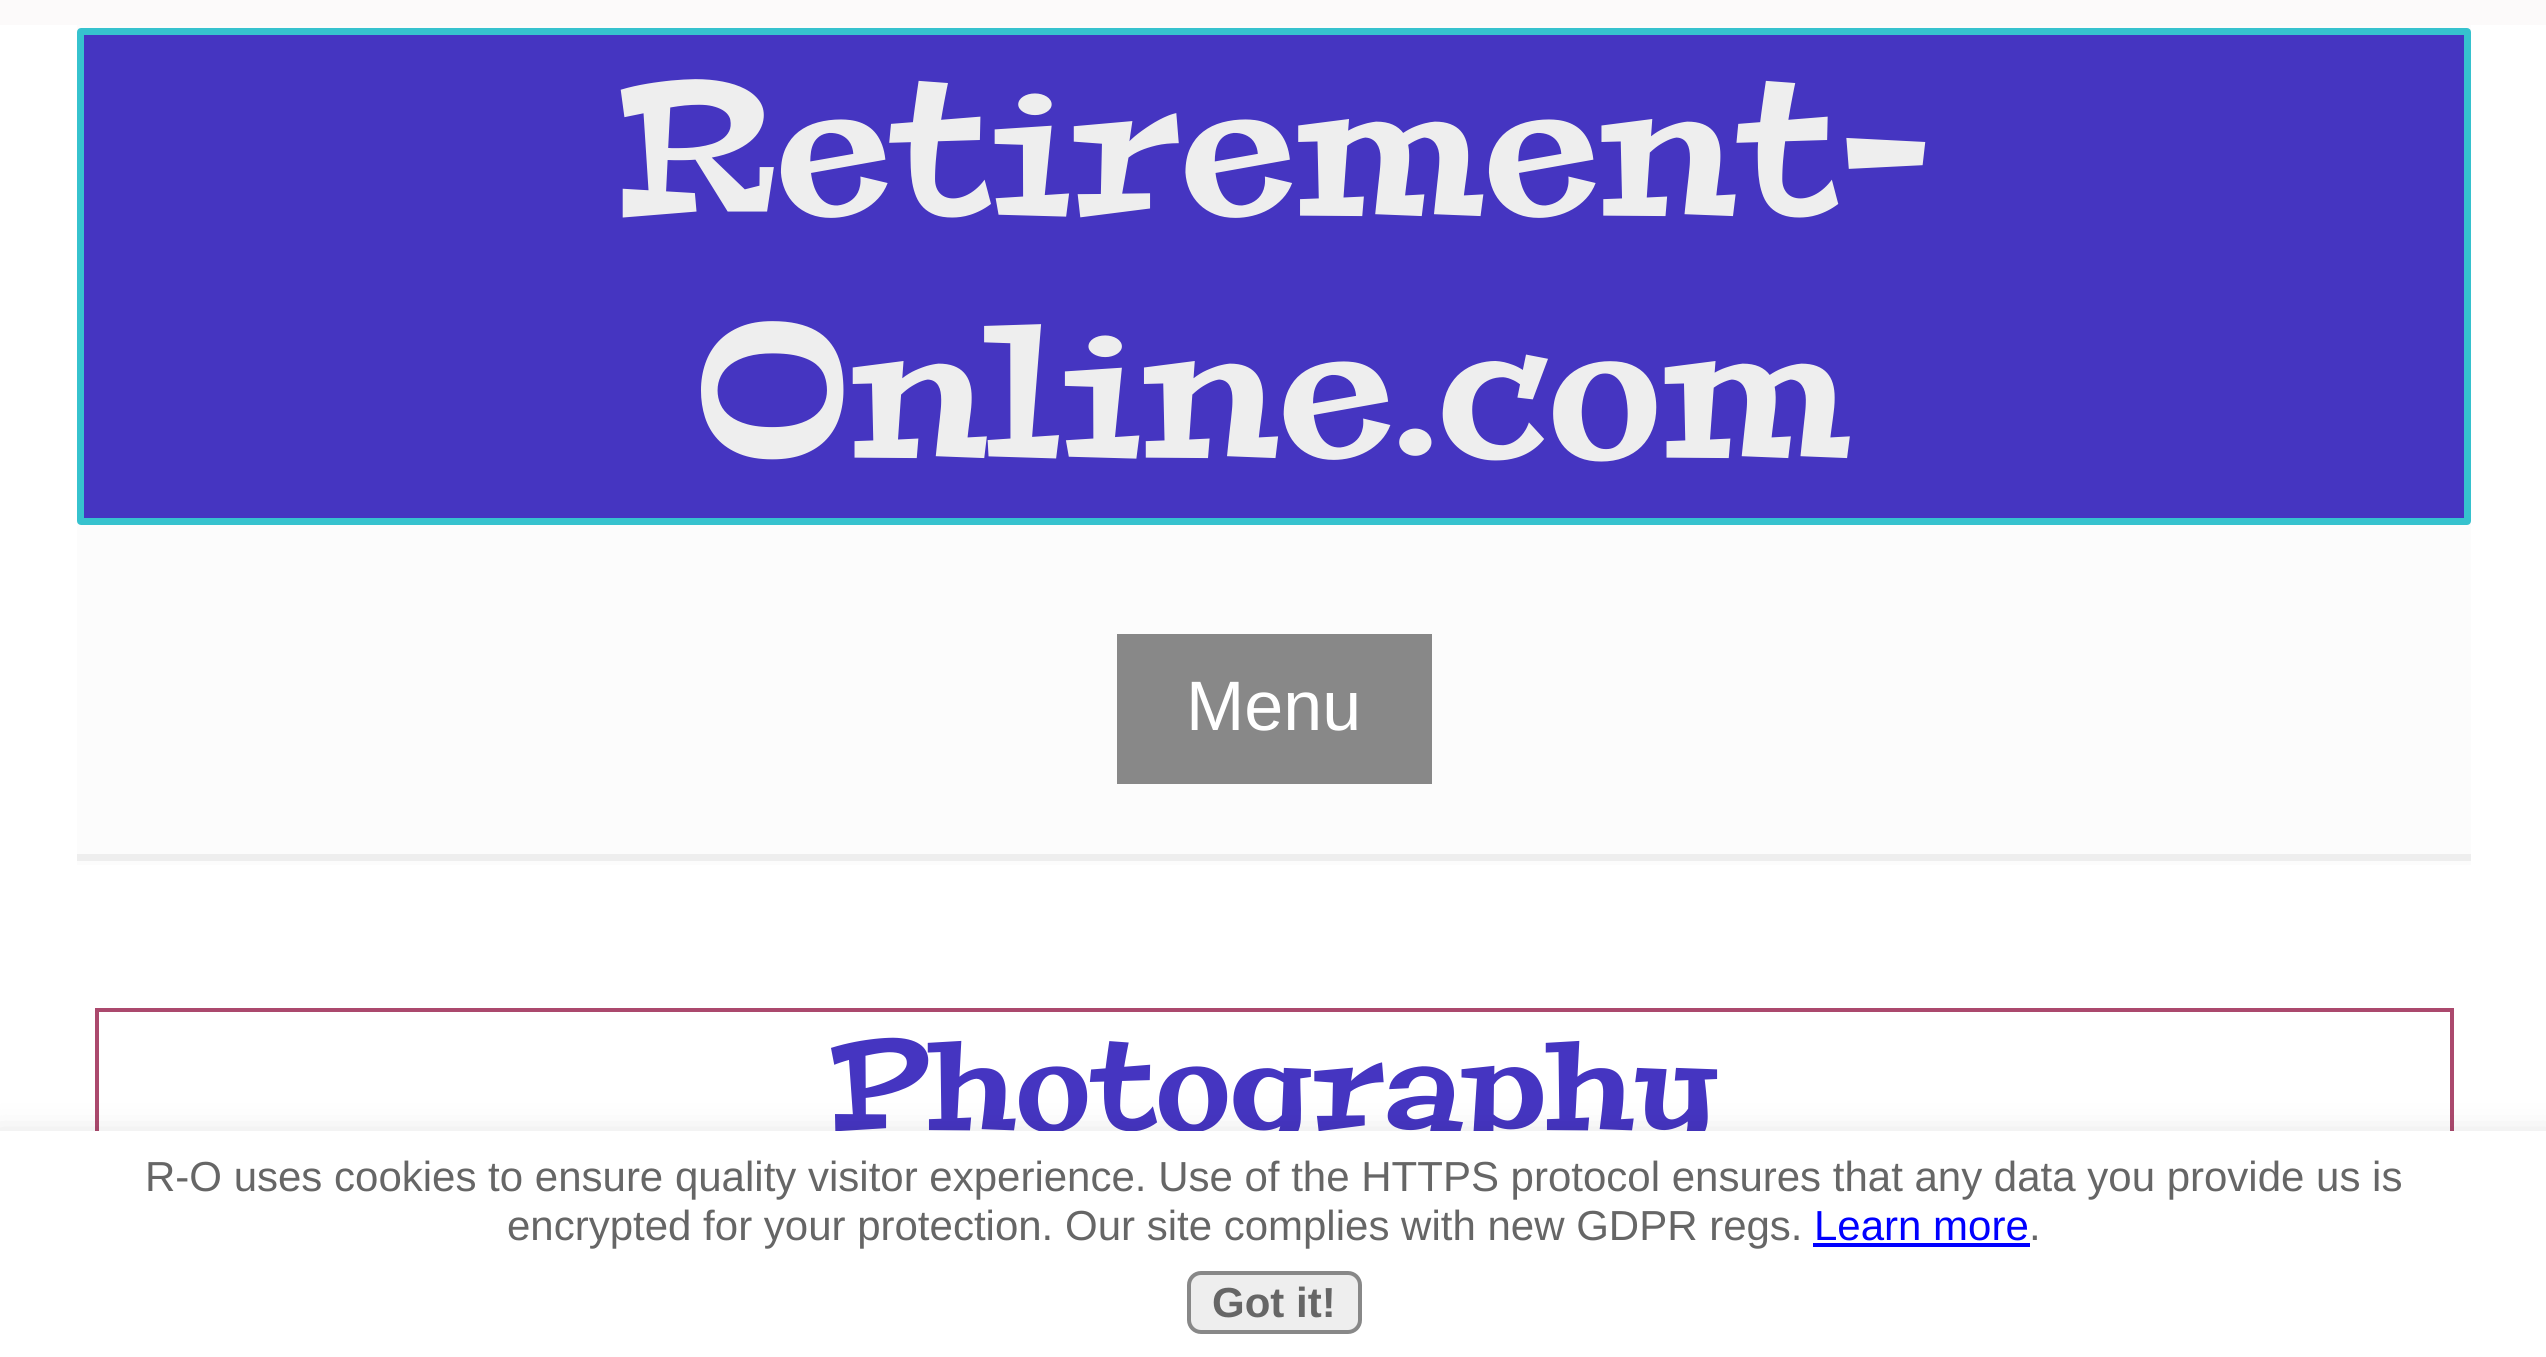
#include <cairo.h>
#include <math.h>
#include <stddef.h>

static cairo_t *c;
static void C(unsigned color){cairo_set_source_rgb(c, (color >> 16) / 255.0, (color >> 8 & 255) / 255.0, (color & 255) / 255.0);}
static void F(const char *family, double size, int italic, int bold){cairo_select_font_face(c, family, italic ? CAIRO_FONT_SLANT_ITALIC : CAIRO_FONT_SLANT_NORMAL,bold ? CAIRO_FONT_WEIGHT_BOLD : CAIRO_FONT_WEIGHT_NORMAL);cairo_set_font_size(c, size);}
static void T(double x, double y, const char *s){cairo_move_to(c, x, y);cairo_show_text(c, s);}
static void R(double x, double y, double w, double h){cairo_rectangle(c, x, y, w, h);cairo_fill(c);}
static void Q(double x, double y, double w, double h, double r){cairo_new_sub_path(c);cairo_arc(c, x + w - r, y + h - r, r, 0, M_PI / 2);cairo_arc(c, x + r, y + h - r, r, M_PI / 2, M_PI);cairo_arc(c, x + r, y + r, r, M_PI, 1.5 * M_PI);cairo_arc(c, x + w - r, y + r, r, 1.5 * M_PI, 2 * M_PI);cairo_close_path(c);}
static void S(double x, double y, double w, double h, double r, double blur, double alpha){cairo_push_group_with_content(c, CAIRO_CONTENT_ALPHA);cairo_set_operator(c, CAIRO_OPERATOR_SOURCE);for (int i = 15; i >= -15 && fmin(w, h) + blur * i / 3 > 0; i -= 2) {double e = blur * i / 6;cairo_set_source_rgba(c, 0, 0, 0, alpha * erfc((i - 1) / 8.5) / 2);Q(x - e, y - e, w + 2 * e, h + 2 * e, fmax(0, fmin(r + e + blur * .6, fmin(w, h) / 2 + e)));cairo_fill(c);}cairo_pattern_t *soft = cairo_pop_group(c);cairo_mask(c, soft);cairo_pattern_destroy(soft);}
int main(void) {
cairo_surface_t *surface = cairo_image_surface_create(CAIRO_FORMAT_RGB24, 2546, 1357);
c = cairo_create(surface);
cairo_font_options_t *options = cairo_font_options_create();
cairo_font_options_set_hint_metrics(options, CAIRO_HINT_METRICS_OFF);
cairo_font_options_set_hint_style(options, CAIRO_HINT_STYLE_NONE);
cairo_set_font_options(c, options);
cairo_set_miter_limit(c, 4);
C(0xfcfafa);
cairo_paint(c);
C(0xffffff);
R(0,25,2546,1106);
C(0xfcfcfc);
R(77,25,2394,840);
C(0x4535c1);
Q(80.5,31.5,2387,490,.5);
cairo_fill_preserve(c);
C(0x36c2ce);
cairo_set_line_width(c,7);
cairo_stroke(c);
F("Peralta",185.5,0,0);
C(0xeeeeee);
T(614,214,"Retirement-");
T(696,456,"Online.com");
C(0x888888);
R(1117,634,315,150);
F("Liberation Sans",70,0,0);
C(0xffffff);
T(1186,730,"Menu");
C(0xeeeeee);
R(77,854,2394,7);
cairo_rectangle(c,97,1010,2355,161);
C(0xab496d);
cairo_set_line_width(c,4);
cairo_stroke(c);
F("Peralta",122.5,0,0);
C(0x4535c1);
T(829,1129,"Photography");
C(0x000000);
S(-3,1141,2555,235,0,17.5,.2);
C(0xffffff);
R(0,1131,2546,226);
F("Liberation Sans",42,0,0);
C(0x666666);
T(145,1191,"R-O uses cookies to ensure quality visitor experience. Use of the HTTPS protocol ensures that any data you provide us is");
T(507,1240,"encrypted for your protection. Our site complies with new GDPR regs.");
C(0x0000ff);
T(1814,1240,"Learn more");
R(1813,1243,217,4);
C(0x666666);
T(2029,1240,".");
C(0xeeeeee);
Q(1189,1273,171,59,12);
cairo_fill_preserve(c);
C(0x888888);
cairo_stroke(c);
F("Liberation Sans",42,0,1);
C(0x666666);
T(1212,1317,"Got it!");
cairo_surface_write_to_png(surface, "o.png");
cairo_font_options_destroy(options);
cairo_destroy(c);
cairo_surface_destroy(surface);
return 0;
}
